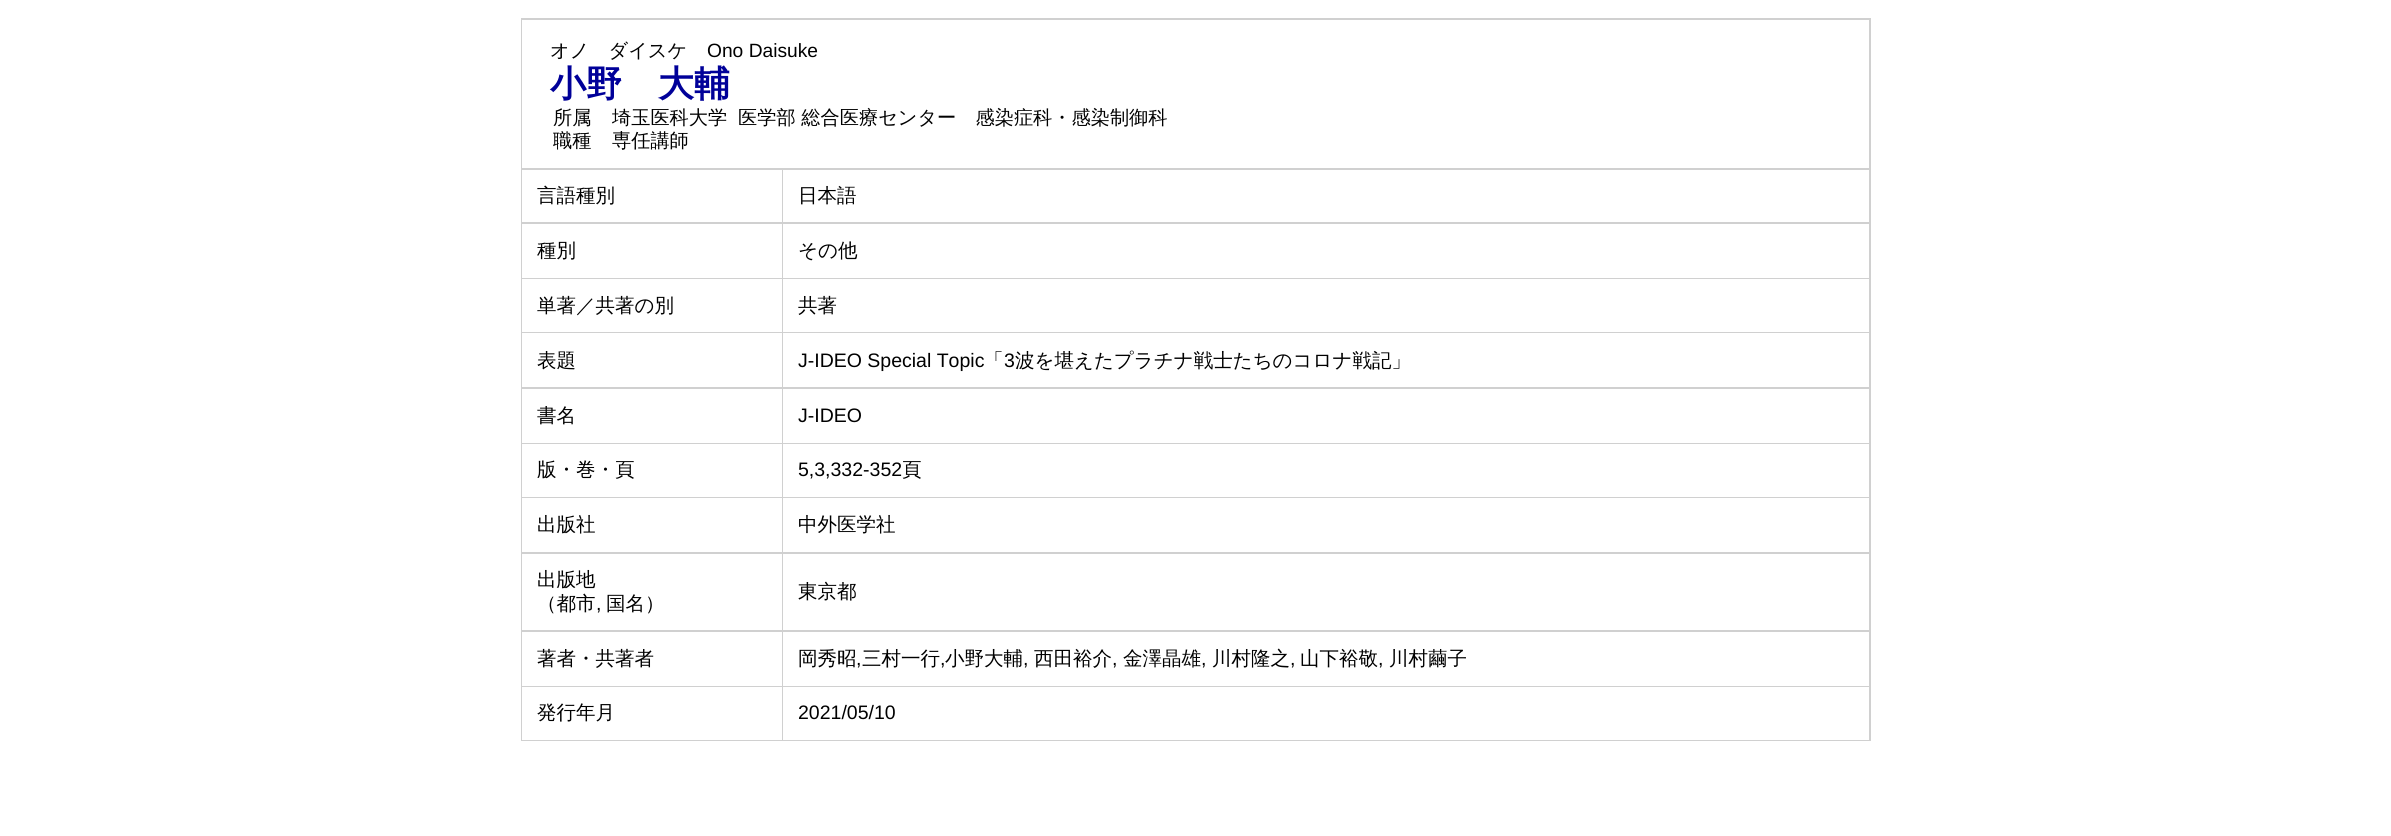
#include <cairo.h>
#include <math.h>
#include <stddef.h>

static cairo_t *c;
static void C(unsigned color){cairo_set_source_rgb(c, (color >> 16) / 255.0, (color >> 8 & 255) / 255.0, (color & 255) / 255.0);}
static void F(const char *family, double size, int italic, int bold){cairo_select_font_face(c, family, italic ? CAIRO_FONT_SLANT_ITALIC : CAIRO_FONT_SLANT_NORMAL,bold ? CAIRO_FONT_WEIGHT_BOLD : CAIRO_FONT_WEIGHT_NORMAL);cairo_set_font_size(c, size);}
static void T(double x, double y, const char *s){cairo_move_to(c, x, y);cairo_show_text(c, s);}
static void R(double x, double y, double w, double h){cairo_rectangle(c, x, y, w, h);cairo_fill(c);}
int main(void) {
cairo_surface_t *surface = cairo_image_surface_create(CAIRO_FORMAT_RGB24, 2391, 836);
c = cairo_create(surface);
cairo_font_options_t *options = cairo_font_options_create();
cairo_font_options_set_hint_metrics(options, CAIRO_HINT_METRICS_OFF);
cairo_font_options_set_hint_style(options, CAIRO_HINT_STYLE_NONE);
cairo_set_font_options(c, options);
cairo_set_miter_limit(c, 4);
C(0xffffff);
cairo_paint(c);
C(0xd0d0d0);
R(521,18,1350,723);
C(0xffffff);
R(522,20,1347,148);
F("WenQuanYi Zen Hei Medium",19.2,0,0);
C(0x000000);
T(550,57,"オノ　ダイスケ");
F("Liberation Sans",19.2,0,0);
T(707,57,"Ono Daisuke");
F("WenQuanYi Zen Hei",36,0,1);
C(0x000099);
T(550,96,"小野　大輔");
F("WenQuanYi Zen Hei Medium",19.2,0,0);
C(0x000000);
T(553,124,"所属");
T(612,124,"埼玉医科大学");
T(738,124,"医学部 総合医療センター　感染症科・感染制御科");
T(553,147,"職種");
T(612,147,"専任講師");
C(0xffffff);
R(522,170,260,52);
F("WenQuanYi Zen Hei Medium",19.5,0,0);
C(0x000000);
T(537,202,"言語種別");
C(0xffffff);
R(783,170,1086,52);
C(0x000000);
T(798,202,"日本語");
C(0xffffff);
R(522,224,260,54);
C(0x000000);
T(537,257,"種別");
C(0xffffff);
R(783,224,1086,54);
C(0x000000);
T(798,257,"その他");
C(0xffffff);
R(522,279,260,53);
C(0x000000);
T(537,312,"単著／共著の別");
C(0xffffff);
R(783,279,1086,53);
C(0x000000);
T(798,312,"共著");
C(0xffffff);
R(522,333,260,54);
C(0x000000);
T(537,367,"表題");
C(0xffffff);
R(783,333,1086,54);
F("Liberation Sans",19.5,0,0);
C(0x000000);
T(798,367,"J-IDEO Special Topic");
F("WenQuanYi Zen Hei Medium",19.5,0,0);
T(984,367,"「");
F("Liberation Sans",19.5,0,0);
T(1004,367,"3");
F("WenQuanYi Zen Hei Medium",19.5,0,0);
T(1015,367,"波を堪えたプラチナ戦士たちのコロナ戦記」");
C(0xffffff);
R(522,389,260,54);
C(0x000000);
T(537,422,"書名");
C(0xffffff);
R(783,389,1086,54);
F("Liberation Sans",19.5,0,0);
C(0x000000);
T(798,422,"J-IDEO");
C(0xffffff);
R(522,444,260,53);
F("WenQuanYi Zen Hei Medium",19.5,0,0);
C(0x000000);
T(537,476,"版・巻・頁");
C(0xffffff);
R(783,444,1086,53);
F("Liberation Sans",19.5,0,0);
C(0x000000);
T(798,476,"5,3,332-352");
F("WenQuanYi Zen Hei Medium",19.5,0,0);
T(902,476,"頁");
C(0xffffff);
R(522,498,260,54);
C(0x000000);
T(537,531,"出版社");
C(0xffffff);
R(783,498,1086,54);
C(0x000000);
T(798,531,"中外医学社");
C(0xffffff);
R(522,554,260,76);
C(0x000000);
T(537,586,"出版地");
T(537,610,"（都市");
F("Liberation Sans",19.5,0,0);
T(596,610,",");
F("WenQuanYi Zen Hei Medium",19.5,0,0);
T(606,610,"国名）");
C(0xffffff);
R(783,554,1086,76);
C(0x000000);
T(798,598,"東京都");
C(0xffffff);
R(522,632,260,54);
C(0x000000);
T(537,665,"著者・共著者");
C(0xffffff);
R(783,632,1086,54);
C(0x000000);
T(798,665,"岡秀昭");
F("Liberation Sans",19.5,0,0);
T(856,665,",");
F("WenQuanYi Zen Hei Medium",19.5,0,0);
T(862,665,"三村一行");
F("Liberation Sans",19.5,0,0);
T(940,665,",");
F("WenQuanYi Zen Hei Medium",19.5,0,0);
T(945,665,"小野大輔");
F("Liberation Sans",19.5,0,0);
T(1023,665,",");
F("WenQuanYi Zen Hei Medium",19.5,0,0);
T(1034,665,"西田裕介");
F("Liberation Sans",19.5,0,0);
T(1112,665,",");
F("WenQuanYi Zen Hei Medium",19.5,0,0);
T(1123,665,"金澤晶雄");
F("Liberation Sans",19.5,0,0);
T(1201,665,",");
F("WenQuanYi Zen Hei Medium",19.5,0,0);
T(1212,665,"川村隆之");
F("Liberation Sans",19.5,0,0);
T(1290,665,",");
F("WenQuanYi Zen Hei Medium",19.5,0,0);
T(1300,665,"山下裕敬");
F("Liberation Sans",19.5,0,0);
T(1378,665,",");
F("WenQuanYi Zen Hei Medium",19.5,0,0);
T(1389,665,"川村繭子");
C(0xffffff);
R(522,687,260,53);
C(0x000000);
T(537,719,"発行年月");
C(0xffffff);
R(783,687,1086,53);
F("Liberation Sans",19.5,0,0);
C(0x000000);
T(798,719,"2021/05/10");
cairo_surface_write_to_png(surface, "o.png");
cairo_font_options_destroy(options);
cairo_destroy(c);
cairo_surface_destroy(surface);
return 0;
}
